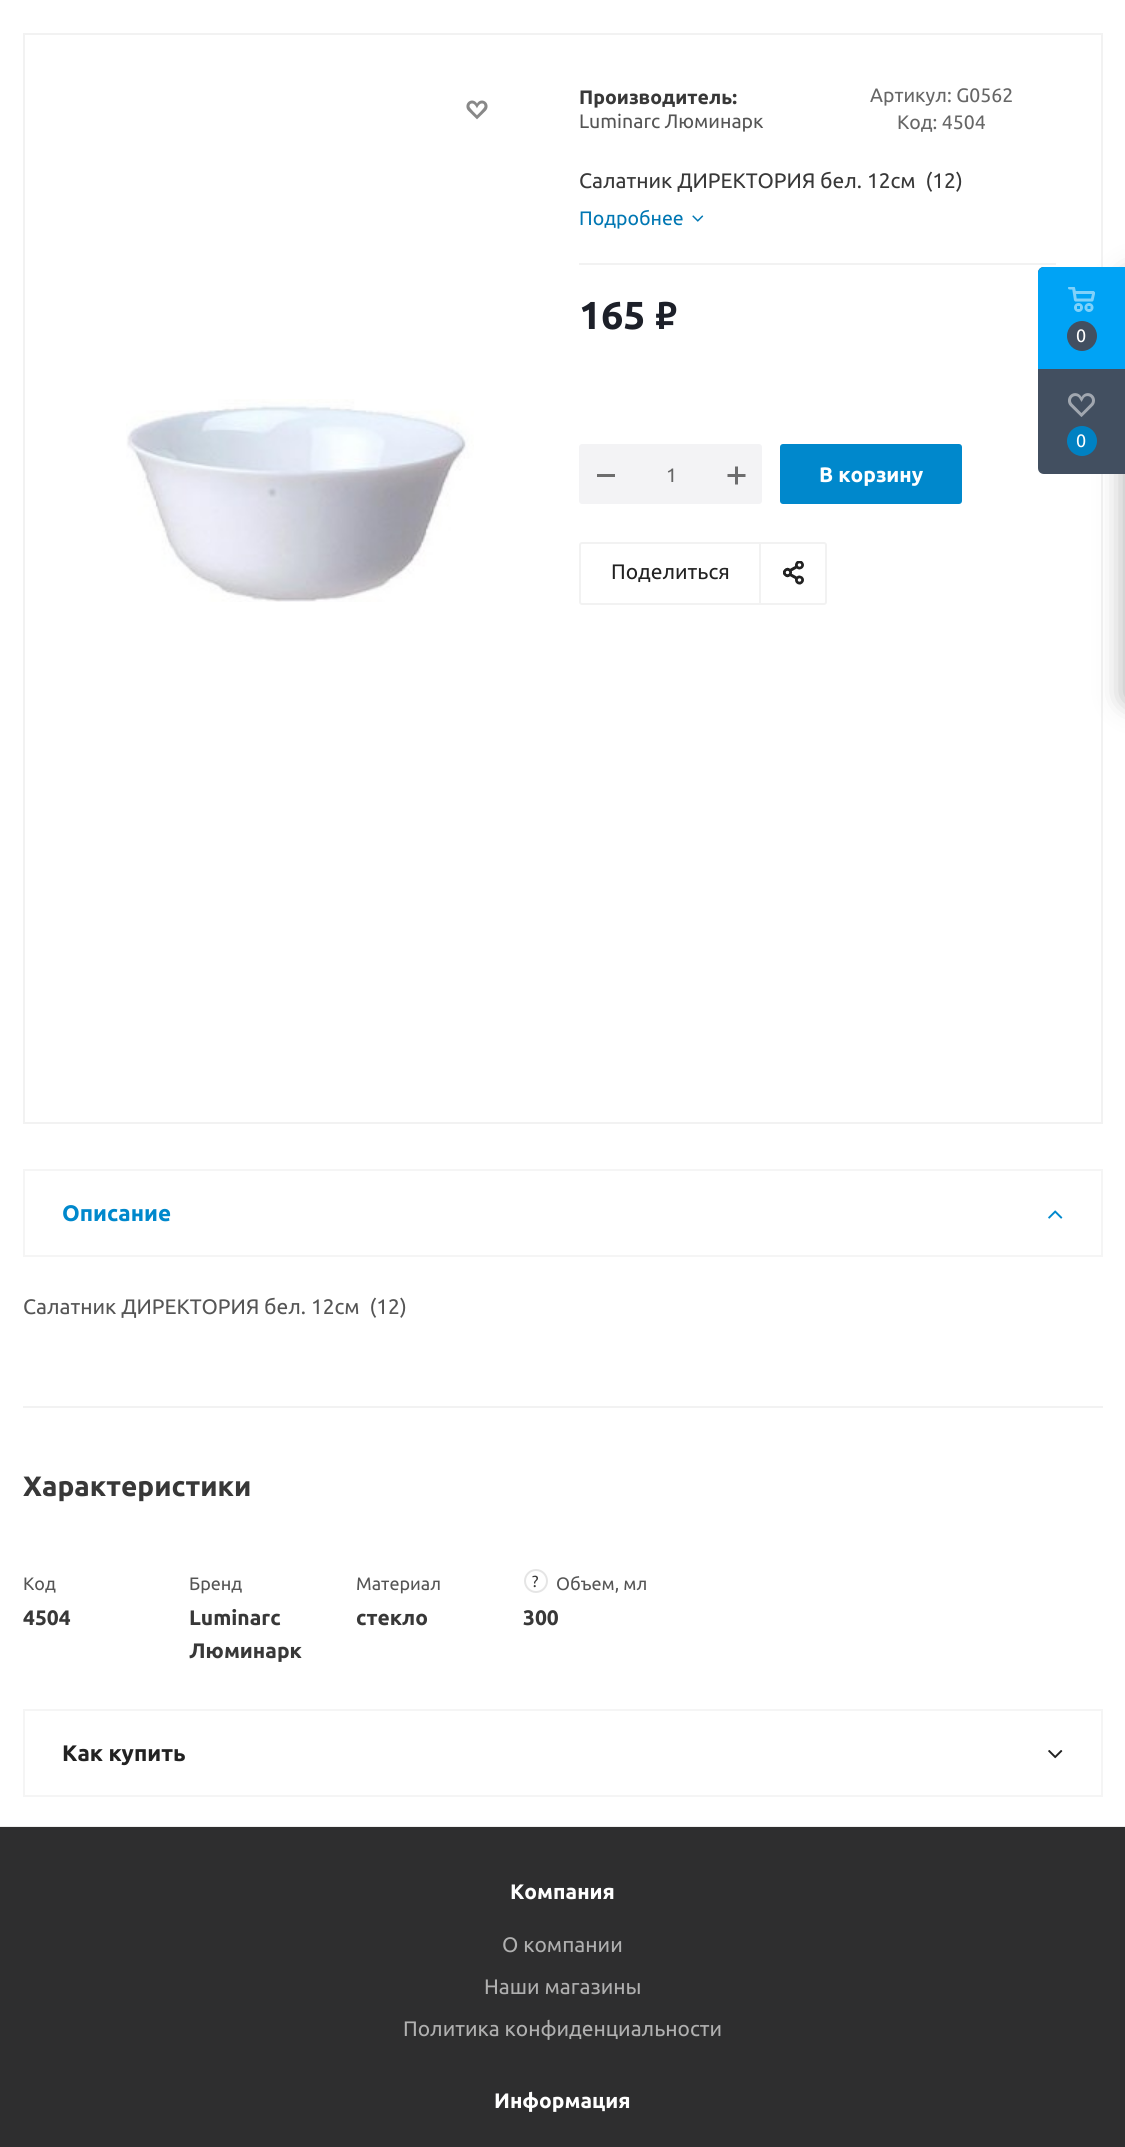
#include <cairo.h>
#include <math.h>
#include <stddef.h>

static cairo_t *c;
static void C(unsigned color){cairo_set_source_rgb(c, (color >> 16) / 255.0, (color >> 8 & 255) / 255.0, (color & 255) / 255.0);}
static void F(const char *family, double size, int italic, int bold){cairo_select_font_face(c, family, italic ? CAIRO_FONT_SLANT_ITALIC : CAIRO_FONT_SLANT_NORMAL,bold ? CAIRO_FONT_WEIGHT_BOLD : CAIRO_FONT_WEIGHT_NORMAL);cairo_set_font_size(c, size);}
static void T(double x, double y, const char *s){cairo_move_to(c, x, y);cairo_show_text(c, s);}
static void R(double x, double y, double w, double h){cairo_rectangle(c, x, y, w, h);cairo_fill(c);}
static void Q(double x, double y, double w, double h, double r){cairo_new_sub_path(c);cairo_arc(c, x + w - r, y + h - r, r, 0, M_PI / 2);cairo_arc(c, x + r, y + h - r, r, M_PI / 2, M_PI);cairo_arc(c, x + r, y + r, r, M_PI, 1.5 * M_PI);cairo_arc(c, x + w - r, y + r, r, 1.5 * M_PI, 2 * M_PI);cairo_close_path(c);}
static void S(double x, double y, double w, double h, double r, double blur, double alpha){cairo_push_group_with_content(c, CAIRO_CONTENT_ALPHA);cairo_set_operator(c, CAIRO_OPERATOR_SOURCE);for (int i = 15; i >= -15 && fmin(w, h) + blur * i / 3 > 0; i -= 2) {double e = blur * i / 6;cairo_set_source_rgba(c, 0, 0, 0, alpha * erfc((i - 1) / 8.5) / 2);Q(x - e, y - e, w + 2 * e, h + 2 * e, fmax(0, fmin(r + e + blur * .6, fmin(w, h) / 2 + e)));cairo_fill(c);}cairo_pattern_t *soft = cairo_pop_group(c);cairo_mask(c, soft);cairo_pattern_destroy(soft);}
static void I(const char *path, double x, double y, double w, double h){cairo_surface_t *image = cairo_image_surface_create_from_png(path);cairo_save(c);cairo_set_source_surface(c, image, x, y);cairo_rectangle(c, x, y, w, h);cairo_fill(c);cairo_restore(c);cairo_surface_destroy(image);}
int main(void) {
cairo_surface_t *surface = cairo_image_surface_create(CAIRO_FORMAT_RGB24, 1125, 2147);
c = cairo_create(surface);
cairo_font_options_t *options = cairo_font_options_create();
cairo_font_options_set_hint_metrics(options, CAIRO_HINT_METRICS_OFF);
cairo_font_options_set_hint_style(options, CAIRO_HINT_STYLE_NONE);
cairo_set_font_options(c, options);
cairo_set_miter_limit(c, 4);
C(0xffffff);
cairo_paint(c);
cairo_rectangle(c,24,34,1078,1089);
C(0xf2f2f2);
cairo_stroke(c);
I("1.png",466,100,22,20);
I("2.png",126,399,348,203);
R(579,263,477,2);
F("Ubuntu",19.5,0,1);
C(0x383838);
T(579,104,"Производитель:");
F("Ubuntu",19.5,0,0);
C(0x555555);
T(579,128,"Luminarc Люминарк");
C(0x666666);
T(870,102,"Артикул: G0562");
T(897,129,"Код: 4504");
F("Ubuntu",21,0,0);
C(0x383838);
T(579,188,"Салатник ДИРЕКТОРИЯ бел. 12см  (12)");
F("Ubuntu",19.5,0,0);
C(0x0077b3);
T(579,225,"Подробнее");
I("3.png",692,215,12,7);
F("Ubuntu",39,0,1);
C(0x1d2029);
T(579,329,"165");
F("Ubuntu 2",39,0,1);
T(655,329,"₽");
C(0xf3f3f5);
Q(580,445,181,58,2);
cairo_fill_preserve(c);
cairo_stroke(c);
C(0x6d6d6d);
R(597,474,18,3);
F("Ubuntu",19.5,0,0);
C(0x666666);
T(666,482,"1");
I("4.png",727,466,19,19);
C(0x0088cc);
Q(781,445,180,58,2);
cairo_fill_preserve(c);
cairo_stroke(c);
F("Ubuntu",21,0,1);
C(0xffffff);
T(819,482,"В корзину");
C(0xf2f2f2);
R(759,542,2,63);
I("5.png",783,561,21,24);
Q(580,543,246,61,2);
cairo_stroke(c);
F("Ubuntu",21,0,0);
C(0x222222);
T(611,579,"Поделиться");
cairo_rectangle(c,24,1170,1078,86);
C(0xf5f5f5);
cairo_stroke(c);
F("Ubuntu",22.5,0,1);
C(0x0088cc);
T(62,1221,"Описание");
I("6.png",1048,1210,15,9);
F("Ubuntu",21,0,0);
C(0x555555);
T(23,1314,"Салатник ДИРЕКТОРИЯ бел. 12см  (12)");
C(0xf2f2f2);
R(23,1406,1080,2);
F("Ubuntu",28,0,1);
C(0x383838);
T(23,1496,"Характеристики");
F("Ubuntu",18,0,0);
C(0x555555);
T(23,1590,"Код");
F("Ubuntu",21,0,1);
C(0x383838);
T(23,1625,"4504");
F("Ubuntu",18,0,0);
C(0x555555);
T(189,1590,"Бренд");
F("Ubuntu",21,0,1);
C(0x383838);
T(189,1625,"Luminarc");
T(189,1658,"Люминарк");
F("Ubuntu",18,0,0);
C(0x555555);
T(356,1590,"Материал");
F("Ubuntu",21,0,1);
C(0x383838);
T(356,1625,"стекло");
cairo_new_path(c);
cairo_arc(c,536,1581,11,0,2 * M_PI);
C(0xe5e5e5);
cairo_stroke(c);
F("Ubuntu",16,0,0);
C(0x383838);
T(532,1587,"?");
F("Ubuntu",18,0,0);
C(0x555555);
T(556,1590,"Объем, мл");
F("Ubuntu",21,0,1);
C(0x383838);
T(523,1625,"300");
cairo_rectangle(c,24,1710,1078,86);
C(0xf5f5f5);
cairo_stroke(c);
F("Ubuntu",22.5,0,1);
C(0x222222);
T(62,1761,"Как купить");
I("7.png",1048,1750,15,9);
C(0x2c2c2c);
S(1125,276,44,425,3,13.5,.4);
C(0x424f60);
cairo_new_path(c);
cairo_move_to(c,1044,267);
cairo_line_to(c,1125,267);
cairo_line_to(c,1125,474);
cairo_line_to(c,1044,474);
cairo_curve_to(c,1040.5,474,1038,471.5,1038,468);
cairo_line_to(c,1038,273);
cairo_curve_to(c,1038,269.5,1040.5,267,1044,267);
cairo_close_path(c);
cairo_fill(c);
C(0x00a3f5);
cairo_new_path(c);
cairo_move_to(c,1044,267);
cairo_line_to(c,1125,267);
cairo_line_to(c,1125,369);
cairo_line_to(c,1038,369);
cairo_line_to(c,1038,273);
cairo_curve_to(c,1038,269.5,1040.5,267,1044,267);
cairo_close_path(c);
cairo_fill(c);
I("8.png",1068,287,27,25);
C(0x424f60);
cairo_arc(c,1082,336,15,0,2 * M_PI);
cairo_fill(c);
F("Ubuntu",18,0,0);
C(0xffffff);
T(1076,342,"0");
I("9.png",1068,393,27,24);
C(0x0081c2);
cairo_arc(c,1082,441,15,0,2 * M_PI);
cairo_fill(c);
C(0xffffff);
T(1076,447,"0");
C(0xeeeeee);
R(0,1826,1125,1);
C(0x2e2e2f);
R(0,1827,1125,320);
F("Ubuntu",21,0,1);
C(0xffffff);
T(510,1899,"Компания");
F("Ubuntu",21,0,0);
C(0xb0b0b0);
T(502,1952,"О компании");
T(484,1994,"Наши магазины");
T(403,2036,"Политика конфиденциальности");
F("Ubuntu",21,0,1);
C(0xffffff);
T(494,2108,"Информация");
cairo_surface_write_to_png(surface, "o.png");
cairo_font_options_destroy(options);
cairo_destroy(c);
cairo_surface_destroy(surface);
return 0;
}
